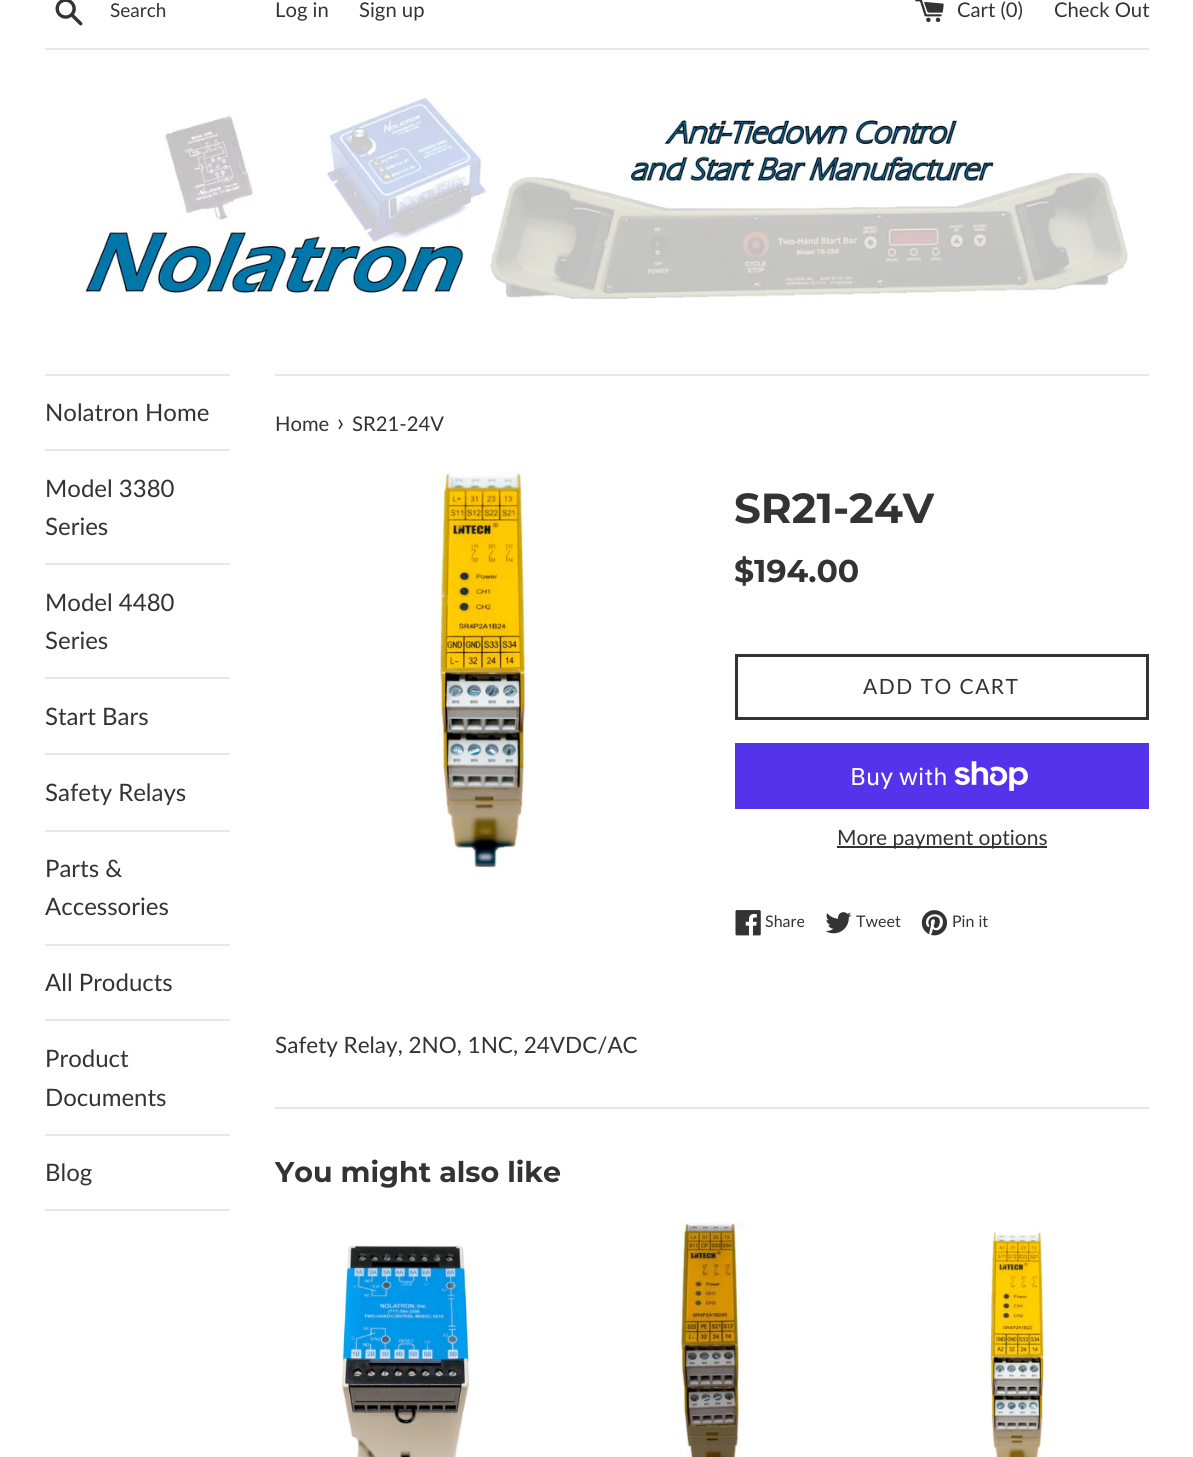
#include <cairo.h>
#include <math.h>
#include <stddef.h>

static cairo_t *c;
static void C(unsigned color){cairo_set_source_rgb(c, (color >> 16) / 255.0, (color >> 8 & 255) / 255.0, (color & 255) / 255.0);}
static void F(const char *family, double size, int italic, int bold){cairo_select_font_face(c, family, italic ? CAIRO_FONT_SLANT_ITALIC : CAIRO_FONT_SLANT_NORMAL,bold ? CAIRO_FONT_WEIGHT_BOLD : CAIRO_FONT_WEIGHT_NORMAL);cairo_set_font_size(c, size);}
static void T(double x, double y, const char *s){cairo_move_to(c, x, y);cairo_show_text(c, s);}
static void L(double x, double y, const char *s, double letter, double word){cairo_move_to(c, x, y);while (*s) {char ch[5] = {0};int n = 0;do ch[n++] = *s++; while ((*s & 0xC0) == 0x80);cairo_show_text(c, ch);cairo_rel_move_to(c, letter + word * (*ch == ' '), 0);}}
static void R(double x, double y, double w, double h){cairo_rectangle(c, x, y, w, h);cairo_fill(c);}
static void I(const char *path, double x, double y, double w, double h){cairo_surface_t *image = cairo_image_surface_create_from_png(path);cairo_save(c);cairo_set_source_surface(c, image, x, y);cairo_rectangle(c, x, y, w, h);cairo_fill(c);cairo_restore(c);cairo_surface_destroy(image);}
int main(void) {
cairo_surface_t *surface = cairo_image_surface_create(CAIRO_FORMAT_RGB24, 1193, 1457);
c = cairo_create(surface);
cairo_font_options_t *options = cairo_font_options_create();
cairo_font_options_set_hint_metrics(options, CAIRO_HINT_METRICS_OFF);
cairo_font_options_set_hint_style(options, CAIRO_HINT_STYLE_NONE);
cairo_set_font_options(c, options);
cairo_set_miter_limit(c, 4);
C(0xffffff);
cairo_paint(c);
I("1.png",55,0,28,26);
F("Lato",19,0,0);
C(0x333333);
T(110,17,"Search");
F("Lato",20.25,0,0);
T(275,17,"Log in");
T(359,17,"Sign up");
I("2.png",915,0,29,23);
T(957,17,"Cart (0)");
T(1054,17,"Check Out");
C(0xe8e8e8);
R(45,48,1104,2);
I("3.png",85,94,1043,205);
R(45,374,185,2);
R(45,449,185,2);
F("Lato",24,0,0);
C(0x333333);
T(45,421,"Nolatron Home");
C(0xe8e8e8);
R(45,563,185,2);
C(0x333333);
T(45,497,"Model 3380");
T(45,535,"Series");
C(0xe8e8e8);
R(45,677,185,2);
C(0x333333);
T(45,611,"Model 4480");
T(45,649,"Series");
C(0xe8e8e8);
R(45,753,185,2);
C(0x333333);
T(45,725,"Start Bars");
C(0xe8e8e8);
R(45,830,185,2);
C(0x333333);
T(45,801,"Safety Relays");
C(0xe8e8e8);
R(45,944,185,2);
C(0x333333);
T(45,877,"Parts &");
T(45,915,"Accessories");
C(0xe8e8e8);
R(45,1019,185,2);
C(0x333333);
T(45,991,"All Products");
C(0xe8e8e8);
R(45,1134,185,2);
C(0x333333);
T(45,1067,"Product");
T(45,1106,"Documents");
C(0xe8e8e8);
R(45,1209,185,2);
C(0x333333);
T(45,1181,"Blog");
C(0xe8e8e8);
R(275,374,874,2);
F("Lato",20.25,0,0);
C(0x333333);
T(275,431,"Home");
F("Lato",25,0,0);
T(337,431,"›");
F("Lato",20.25,0,0);
T(352,431,"SR21-24V");
I("4.png",437,472,92,397);
F("Montserrat",42,0,1);
T(734,523,"SR21-24V");
F("Montserrat",31.5,0,1);
T(734,582,"$194.00");
cairo_rectangle(c,736.5,655.5,411,63);
cairo_set_line_width(c,3);
cairo_stroke(c);
F("Lato",21,0,0);
L(863,694,"ADD TO CART",1.5,0);
C(0x5433eb);
R(735,743,414,66);
F("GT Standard",24,0,0);
C(0xffffff);
T(850,785,"Buy with");
I("5.png",954,761,74,30);
C(0x333333);
R(837,846,210,2);
F("Lato",21,0,0);
T(837,845,"More payment options");
I("6.png",735,910,26,26);
F("Lato",16,0,0);
T(765,927,"Share");
I("7.png",825,912,27,22);
T(856,927,"Tweet");
I("8.png",921,910,27,26);
T(952,927,"Pin it");
F("Lato",22.5,0,0);
T(275,1053,"Safety Relay, 2NO, 1NC, 24VDC/AC");
C(0xe8e8e8);
R(275,1107,874,2);
F("Montserrat",28.5,0,1);
C(0x333333);
T(275,1182,"You might also like");
I("9.png",339,1245,132,212);
I("10.png",677,1222,69,235);
I("11.png",988,1229,57,228);
cairo_surface_write_to_png(surface, "o.png");
cairo_font_options_destroy(options);
cairo_destroy(c);
cairo_surface_destroy(surface);
return 0;
}
